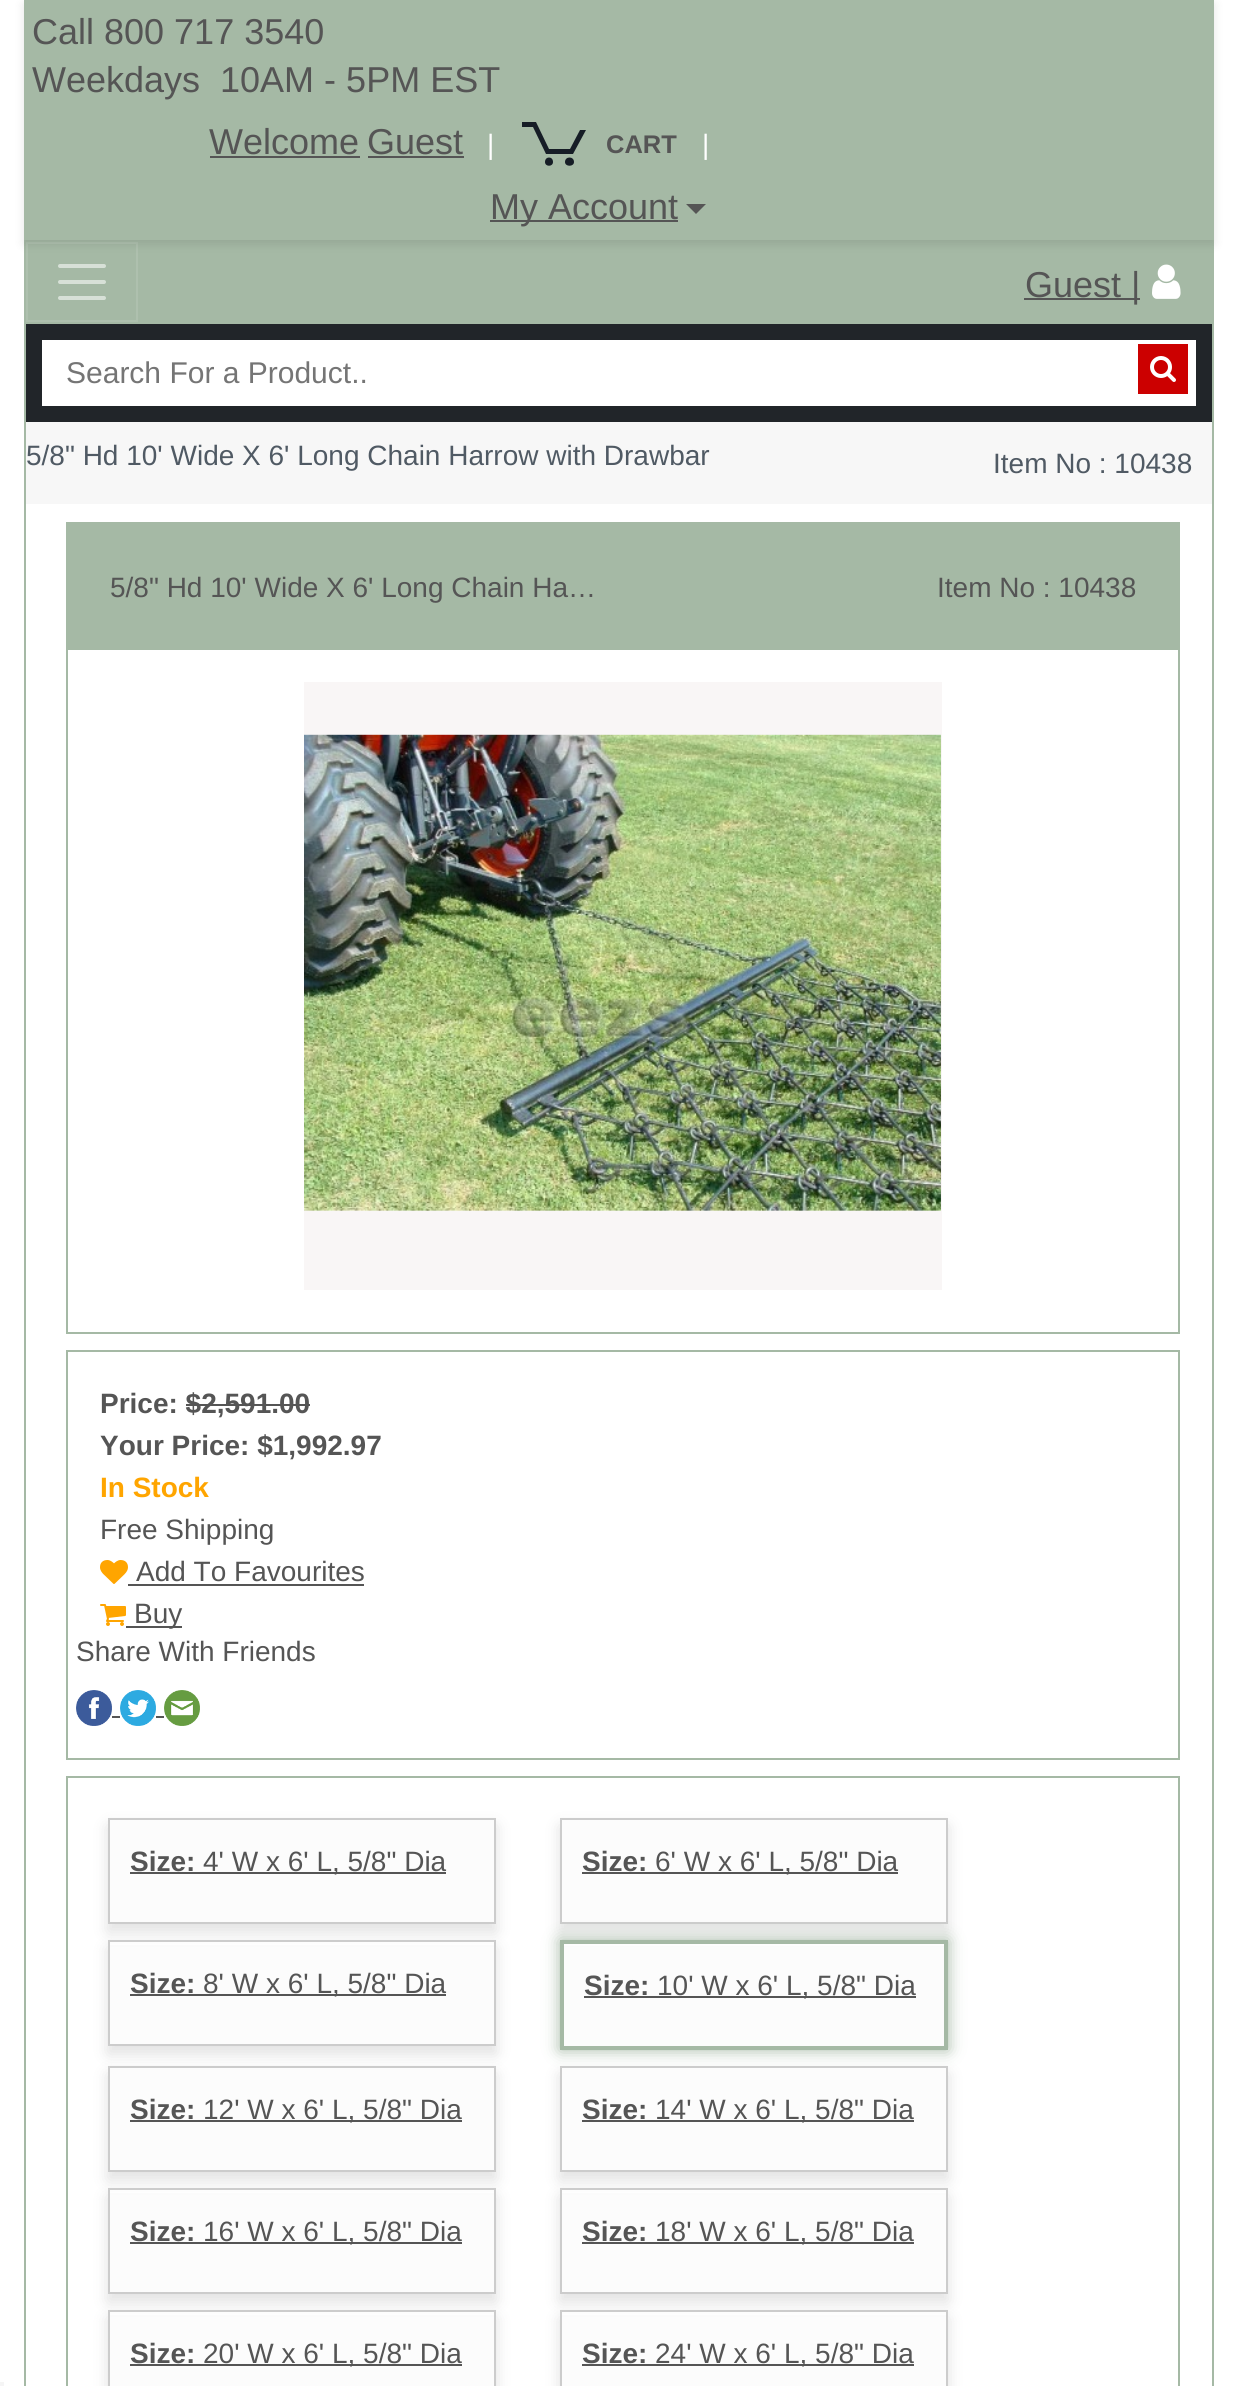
#include <cairo.h>
#include <math.h>
#include <stddef.h>

static cairo_t *c;
static void C(unsigned color){cairo_set_source_rgb(c, (color >> 16) / 255.0, (color >> 8 & 255) / 255.0, (color & 255) / 255.0);}
static void F(const char *family, double size, int italic, int bold){cairo_select_font_face(c, family, italic ? CAIRO_FONT_SLANT_ITALIC : CAIRO_FONT_SLANT_NORMAL,bold ? CAIRO_FONT_WEIGHT_BOLD : CAIRO_FONT_WEIGHT_NORMAL);cairo_set_font_size(c, size);}
static void T(double x, double y, const char *s){cairo_move_to(c, x, y);cairo_show_text(c, s);}
static void R(double x, double y, double w, double h){cairo_rectangle(c, x, y, w, h);cairo_fill(c);}
static void Q(double x, double y, double w, double h, double r){cairo_new_sub_path(c);cairo_arc(c, x + w - r, y + h - r, r, 0, M_PI / 2);cairo_arc(c, x + r, y + h - r, r, M_PI / 2, M_PI);cairo_arc(c, x + r, y + r, r, M_PI, 1.5 * M_PI);cairo_arc(c, x + w - r, y + r, r, 1.5 * M_PI, 2 * M_PI);cairo_close_path(c);}
static void S(double x, double y, double w, double h, double r, double blur, double alpha){cairo_push_group_with_content(c, CAIRO_CONTENT_ALPHA);cairo_set_operator(c, CAIRO_OPERATOR_SOURCE);for (int i = 15; i >= -15 && fmin(w, h) + blur * i / 3 > 0; i -= 2) {double e = blur * i / 6;cairo_set_source_rgba(c, 0, 0, 0, alpha * erfc((i - 1) / 8.5) / 2);Q(x - e, y - e, w + 2 * e, h + 2 * e, fmax(0, fmin(r + e + blur * .6, fmin(w, h) / 2 + e)));cairo_fill(c);}cairo_pattern_t *soft = cairo_pop_group(c);cairo_mask(c, soft);cairo_pattern_destroy(soft);}
static void I(const char *path, double x, double y, double w, double h){cairo_surface_t *image = cairo_image_surface_create_from_png(path);cairo_save(c);cairo_set_source_surface(c, image, x, y);cairo_rectangle(c, x, y, w, h);cairo_fill(c);cairo_restore(c);cairo_surface_destroy(image);}
int main(void) {
cairo_surface_t *surface = cairo_image_surface_create(CAIRO_FORMAT_RGB24, 1238, 2386);
c = cairo_create(surface);
cairo_font_options_t *options = cairo_font_options_create();
cairo_font_options_set_hint_metrics(options, CAIRO_HINT_METRICS_OFF);
cairo_font_options_set_hint_style(options, CAIRO_HINT_STYLE_NONE);
cairo_set_font_options(c, options);
cairo_set_miter_limit(c, 4);
C(0xffffff);
cairo_paint(c);
cairo_rectangle(c,25,241,1188,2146);
C(0xa5b9a5);
cairo_stroke(c);
R(26,242,1186,82);
cairo_rectangle(c,27,243,110,78);
C(0xaec0ae);
cairo_stroke(c);
C(0x000000);
S(24,4,1190,240,0,5,.1);
C(0xa5b9a5);
R(24,0,1190,240);
F("Liberation Sans",36,0,0);
C(0x555555);
T(32,44,"Call 800 717 3540");
T(32,92,"Weekdays  10AM - 5PM EST");
T(209,154,"Welcome");
R(210,156,150,2);
T(367,154,"Guest");
R(368,156,96,2);
F("Liberation Sans",28,0,0);
C(0xffffff);
T(487,154,"|");
C(0x161d26);
cairo_set_fill_rule(c,CAIRO_FILL_RULE_EVEN_ODD);
cairo_new_path(c);
cairo_move_to(c,570,149);
cairo_line_to(c,580,130);
cairo_line_to(c,586,130);
cairo_line_to(c,573,154);
cairo_line_to(c,546,154);
cairo_line_to(c,533,127);
cairo_line_to(c,522,127);
cairo_line_to(c,522,122);
cairo_line_to(c,536,122);
cairo_line_to(c,549,149);
cairo_close_path(c);
cairo_move_to(c,553,162);
cairo_curve_to(c,553,167,545,167,545,162);
cairo_curve_to(c,545,156,553,156,553,162);
cairo_close_path(c);
cairo_move_to(c,574,162);
cairo_curve_to(c,574,167,565,167,565,162);
cairo_curve_to(c,565,156,574,156,574,162);
cairo_close_path(c);
cairo_fill(c);
F("Liberation Sans",25.5,0,1);
C(0x555555);
T(606,153,"CART");
F("Liberation Sans",28,0,0);
C(0xffffff);
T(702,154,"|");
C(0x555555);
R(490,220,188,2);
F("Liberation Sans",36,0,0);
T(490,219,"My Account");
cairo_set_fill_rule(c,CAIRO_FILL_RULE_WINDING);
cairo_new_path(c);
cairo_move_to(c,686,204);
cairo_line_to(c,706,204);
cairo_line_to(c,696,214);
cairo_close_path(c);
cairo_fill(c);
cairo_new_path(c);
cairo_move_to(c,60,266);
cairo_line_to(c,104,266);
cairo_move_to(c,60,282);
cairo_line_to(c,104,282);
cairo_move_to(c,60,298);
cairo_line_to(c,104,298);
C(0xd7e0d7);
cairo_set_line_width(c,4);
cairo_set_line_cap(c,CAIRO_LINE_CAP_ROUND);
cairo_stroke(c);
C(0x555555);
R(1024,298,116,2);
T(1025,297,"Guest |");
I("1.png",1152,264,29,35);
C(0x212529);
R(26,324,1186,98);
C(0xffffff);
R(42,340,1154,66);
F("Liberation Sans",30,0,0);
C(0x757575);
T(66,383,"Search For a Product..");
C(0xcc0000);
R(1138,344,50,50);
I("2.png",1150,356,26,26);
C(0xf7f7f7);
R(26,422,1186,82);
F("Liberation Sans",28,0,0);
C(0x505a64);
T(26,465,"5/8\" Hd 10' Wide X 6' Long Chain Harrow with Drawbar");
T(993,473,"Item No : 10438");
cairo_rectangle(c,67,523,1112,810);
C(0xa5b9a5);
cairo_set_line_width(c,2);
cairo_set_line_cap(c,CAIRO_LINE_CAP_BUTT);
cairo_stroke(c);
R(68,524,1110,126);
C(0x555555);
T(110,597,"5/8\" Hd 10' Wide X 6' Long Chain Ha…");
T(937,597,"Item No : 10438");
C(0xf9f6f6);
R(304,682,638,608);
I("3.png",304,734,637,477);
cairo_rectangle(c,67,1351,1112,408);
C(0xa5b9a5);
cairo_stroke(c);
F("Liberation Sans",28,0,1);
C(0x555555);
T(100,1413,"Price: $2,591.00");
R(186,1404,124,2);
T(100,1455,"Your Price: $1,992.97");
C(0xffa500);
T(100,1497,"In Stock");
F("Liberation Sans",28,0,0);
C(0x555555);
T(100,1539,"Free Shipping");
I("4.png",100,1560,28,24);
T(136,1581,"Add To Favourites");
R(128,1584,236,2);
I("5.png",100,1604,26,22);
R(126,1626,56,2);
T(134,1623,"Buy");
T(76,1661,"Share With Friends");
I("6.png",76,1690,36,36);
R(112,1716,8,2);
I("7.png",120,1690,36,36);
R(156,1716,8,2);
I("8.png",164,1690,36,36);
cairo_rectangle(c,67,1777,1112,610);
C(0xa5b9a5);
cairo_stroke(c);
C(0x000000);
S(108,1826,388,106,0,8,.12);
C(0xfcfcfc);
cairo_rectangle(c,109,1819,386,104);
cairo_fill_preserve(c);
C(0xcccccc);
cairo_stroke(c);
F("Liberation Sans",28,0,1);
C(0x555555);
T(130,1871,"Size:");
R(130,1872,316,2);
F("Liberation Sans",28,0,0);
T(203,1871,"4' W x 6' L, 5/8\" Dia");
C(0x000000);
S(560,1826,388,106,0,8,.12);
C(0xfcfcfc);
cairo_rectangle(c,561,1819,386,104);
cairo_fill_preserve(c);
C(0xcccccc);
cairo_stroke(c);
F("Liberation Sans",28,0,1);
C(0x555555);
T(582,1871,"Size:");
R(582,1872,316,2);
F("Liberation Sans",28,0,0);
T(655,1871,"6' W x 6' L, 5/8\" Dia");
cairo_save(c);
cairo_set_fill_rule(c,CAIRO_FILL_RULE_EVEN_ODD);
cairo_new_path(c);
cairo_move_to(c,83,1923);
cairo_line_to(c,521,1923);
cairo_line_to(c,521,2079);
cairo_line_to(c,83,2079);
cairo_close_path(c);
cairo_move_to(c,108,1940);
cairo_line_to(c,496,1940);
cairo_line_to(c,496,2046);
cairo_line_to(c,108,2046);
cairo_close_path(c);
cairo_clip(c);
C(0x000000);
S(108,1948,388,106,0,8,.12);
cairo_restore(c);
cairo_set_source_rgba(c,0.961,0.961,0.961,0.28);
R(110,1945,384,99);
cairo_rectangle(c,109,1941,386,104);
C(0xcccccc);
cairo_stroke(c);
F("Liberation Sans",28,0,1);
C(0x555555);
T(130,1993,"Size:");
R(130,1994,316,2);
F("Liberation Sans",28,0,0);
T(203,1993,"8' W x 6' L, 5/8\" Dia");
cairo_save(c);
cairo_set_fill_rule(c,CAIRO_FILL_RULE_EVEN_ODD);
cairo_new_path(c);
cairo_move_to(c,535,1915);
cairo_line_to(c,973,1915);
cairo_line_to(c,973,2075);
cairo_line_to(c,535,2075);
cairo_close_path(c);
cairo_move_to(c,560,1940);
cairo_line_to(c,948,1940);
cairo_line_to(c,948,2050);
cairo_line_to(c,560,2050);
cairo_close_path(c);
cairo_clip(c);
C(0xa5b9a5);
S(560,1940,388,110,0,8,1);
cairo_restore(c);
cairo_set_source_rgba(c,0.961,0.961,0.961,0.28);
R(564,1946,380,100);
cairo_rectangle(c,562,1942,384,106);
C(0xa5b9a5);
cairo_set_line_width(c,4);
cairo_stroke(c);
F("Liberation Sans",28,0,1);
C(0x555555);
T(584,1995,"Size:");
R(584,1996,332,2);
F("Liberation Sans",28,0,0);
T(657,1995,"10' W x 6' L, 5/8\" Dia");
C(0x000000);
S(108,2074,388,106,0,8,.12);
C(0xfcfcfc);
cairo_rectangle(c,109,2067,386,104);
cairo_fill_preserve(c);
C(0xcccccc);
cairo_set_line_width(c,2);
cairo_stroke(c);
F("Liberation Sans",28,0,1);
C(0x555555);
T(130,2119,"Size:");
R(130,2120,332,2);
F("Liberation Sans",28,0,0);
T(203,2119,"12' W x 6' L, 5/8\" Dia");
C(0x000000);
S(560,2074,388,106,0,8,.12);
C(0xfcfcfc);
cairo_rectangle(c,561,2067,386,104);
cairo_fill_preserve(c);
C(0xcccccc);
cairo_stroke(c);
F("Liberation Sans",28,0,1);
C(0x555555);
T(582,2119,"Size:");
R(582,2120,332,2);
F("Liberation Sans",28,0,0);
T(655,2119,"14' W x 6' L, 5/8\" Dia");
cairo_save(c);
cairo_set_fill_rule(c,CAIRO_FILL_RULE_EVEN_ODD);
cairo_new_path(c);
cairo_move_to(c,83,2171);
cairo_line_to(c,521,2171);
cairo_line_to(c,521,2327);
cairo_line_to(c,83,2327);
cairo_close_path(c);
cairo_move_to(c,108,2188);
cairo_line_to(c,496,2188);
cairo_line_to(c,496,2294);
cairo_line_to(c,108,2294);
cairo_close_path(c);
cairo_clip(c);
C(0x000000);
S(108,2196,388,106,0,8,.12);
cairo_restore(c);
cairo_set_source_rgba(c,0.961,0.961,0.961,0.28);
R(110,2193,384,99);
cairo_rectangle(c,109,2189,386,104);
C(0xcccccc);
cairo_stroke(c);
F("Liberation Sans",28,0,1);
C(0x555555);
T(130,2241,"Size:");
R(130,2242,332,2);
F("Liberation Sans",28,0,0);
T(203,2241,"16' W x 6' L, 5/8\" Dia");
cairo_save(c);
cairo_set_fill_rule(c,CAIRO_FILL_RULE_EVEN_ODD);
cairo_new_path(c);
cairo_move_to(c,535,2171);
cairo_line_to(c,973,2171);
cairo_line_to(c,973,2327);
cairo_line_to(c,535,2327);
cairo_close_path(c);
cairo_move_to(c,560,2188);
cairo_line_to(c,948,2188);
cairo_line_to(c,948,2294);
cairo_line_to(c,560,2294);
cairo_close_path(c);
cairo_clip(c);
C(0x000000);
S(560,2196,388,106,0,8,.12);
cairo_restore(c);
cairo_set_source_rgba(c,0.961,0.961,0.961,0.28);
R(562,2193,384,99);
cairo_rectangle(c,561,2189,386,104);
C(0xcccccc);
cairo_stroke(c);
F("Liberation Sans",28,0,1);
C(0x555555);
T(582,2241,"Size:");
R(582,2242,332,2);
F("Liberation Sans",28,0,0);
T(655,2241,"18' W x 6' L, 5/8\" Dia");
cairo_save(c);
cairo_set_fill_rule(c,CAIRO_FILL_RULE_EVEN_ODD);
cairo_new_path(c);
cairo_move_to(c,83,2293);
cairo_line_to(c,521,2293);
cairo_line_to(c,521,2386);
cairo_line_to(c,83,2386);
cairo_close_path(c);
cairo_move_to(c,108,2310);
cairo_line_to(c,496,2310);
cairo_line_to(c,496,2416);
cairo_line_to(c,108,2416);
cairo_close_path(c);
cairo_clip(c);
C(0x000000);
S(108,2318,388,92,0,8,.12);
cairo_restore(c);
cairo_set_source_rgba(c,0.961,0.961,0.961,0.28);
R(110,2315,384,71);
cairo_rectangle(c,109,2311,386,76);
C(0xcccccc);
cairo_stroke(c);
F("Liberation Sans",28,0,1);
C(0x555555);
T(130,2363,"Size:");
R(130,2364,332,2);
F("Liberation Sans",28,0,0);
T(203,2363,"20' W x 6' L, 5/8\" Dia");
cairo_save(c);
cairo_set_fill_rule(c,CAIRO_FILL_RULE_EVEN_ODD);
cairo_new_path(c);
cairo_move_to(c,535,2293);
cairo_line_to(c,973,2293);
cairo_line_to(c,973,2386);
cairo_line_to(c,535,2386);
cairo_close_path(c);
cairo_move_to(c,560,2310);
cairo_line_to(c,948,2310);
cairo_line_to(c,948,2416);
cairo_line_to(c,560,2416);
cairo_close_path(c);
cairo_clip(c);
C(0x000000);
S(560,2318,388,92,0,8,.12);
cairo_restore(c);
cairo_set_source_rgba(c,0.961,0.961,0.961,0.28);
R(562,2315,384,71);
cairo_rectangle(c,561,2311,386,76);
C(0xcccccc);
cairo_stroke(c);
F("Liberation Sans",28,0,1);
C(0x555555);
T(582,2363,"Size:");
R(582,2364,332,2);
F("Liberation Sans",28,0,0);
T(655,2363,"24' W x 6' L, 5/8\" Dia");
C(0xf5f5f5);
R(0,2382,4,4);
cairo_surface_write_to_png(surface, "o.png");
cairo_font_options_destroy(options);
cairo_destroy(c);
cairo_surface_destroy(surface);
return 0;
}
